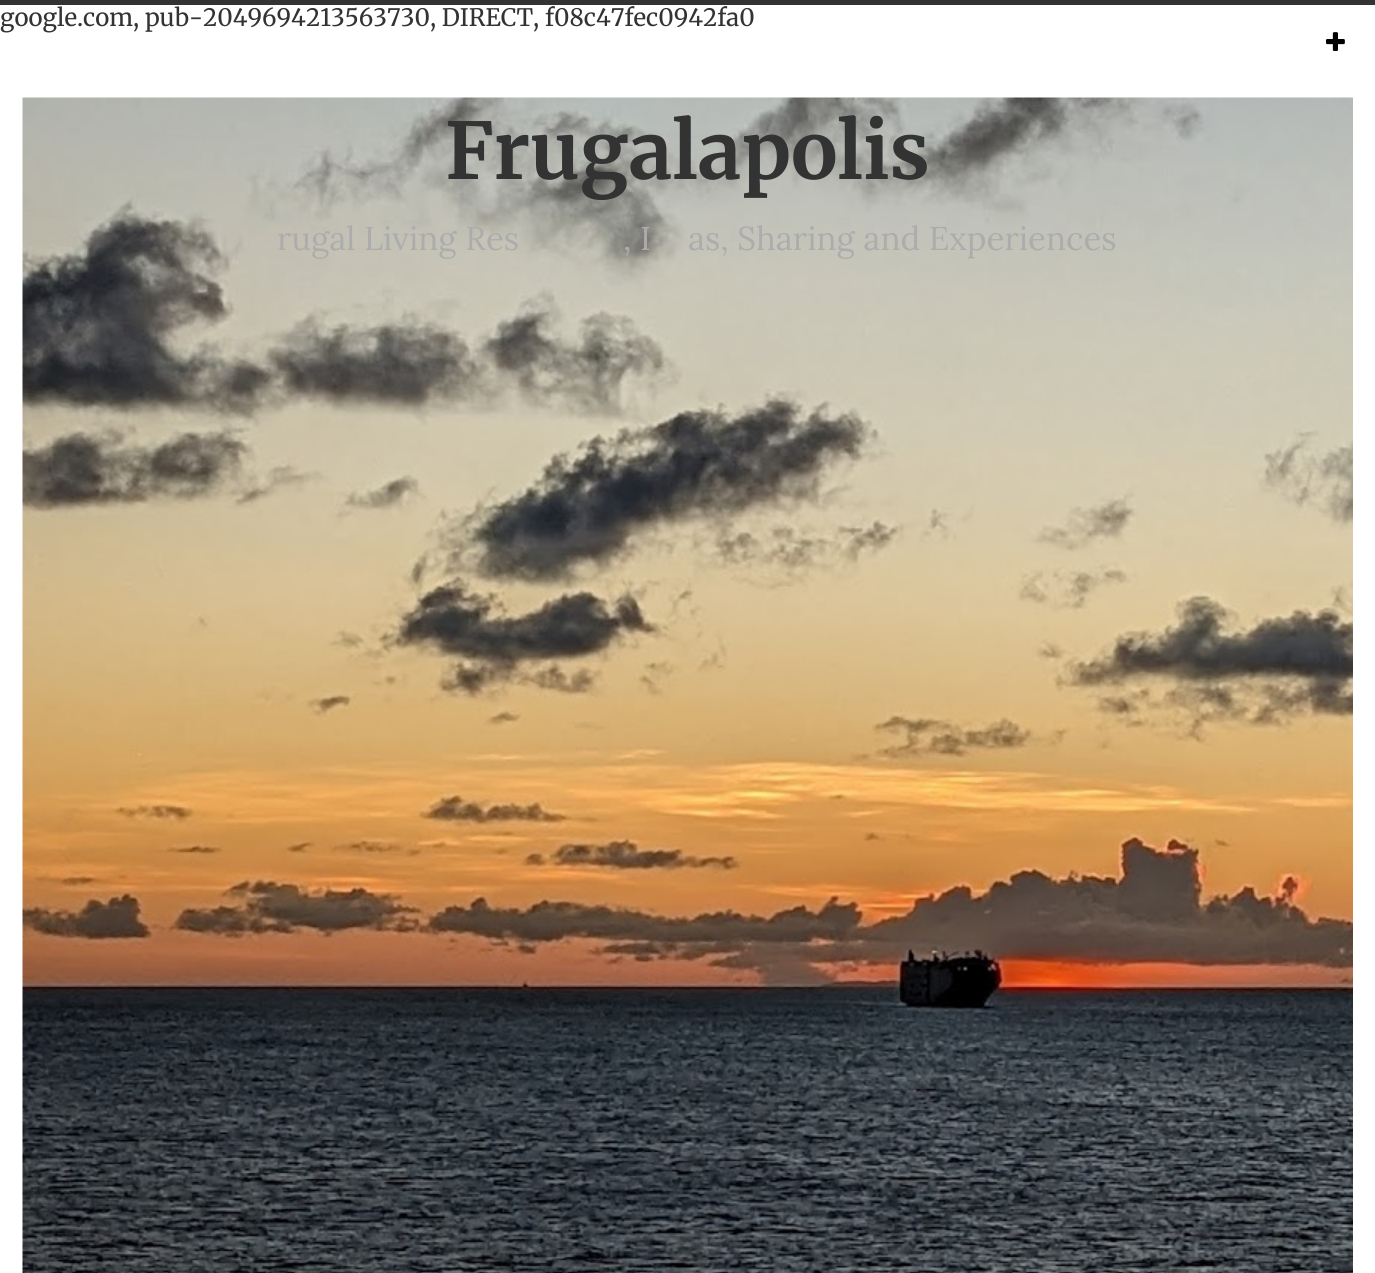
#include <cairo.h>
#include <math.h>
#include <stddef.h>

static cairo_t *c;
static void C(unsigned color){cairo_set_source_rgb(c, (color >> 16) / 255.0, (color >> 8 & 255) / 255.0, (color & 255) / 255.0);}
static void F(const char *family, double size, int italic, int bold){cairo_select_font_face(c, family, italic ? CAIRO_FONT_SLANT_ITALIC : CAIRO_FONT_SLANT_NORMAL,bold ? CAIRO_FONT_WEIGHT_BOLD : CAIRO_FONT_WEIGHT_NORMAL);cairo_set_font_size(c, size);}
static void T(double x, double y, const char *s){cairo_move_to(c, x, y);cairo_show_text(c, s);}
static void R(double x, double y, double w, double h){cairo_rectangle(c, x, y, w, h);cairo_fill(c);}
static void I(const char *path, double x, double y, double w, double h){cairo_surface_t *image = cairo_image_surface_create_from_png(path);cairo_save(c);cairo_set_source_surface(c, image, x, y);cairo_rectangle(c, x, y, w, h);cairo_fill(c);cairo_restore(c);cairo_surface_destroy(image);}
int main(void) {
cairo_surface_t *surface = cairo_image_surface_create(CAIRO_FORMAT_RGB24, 1375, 1273);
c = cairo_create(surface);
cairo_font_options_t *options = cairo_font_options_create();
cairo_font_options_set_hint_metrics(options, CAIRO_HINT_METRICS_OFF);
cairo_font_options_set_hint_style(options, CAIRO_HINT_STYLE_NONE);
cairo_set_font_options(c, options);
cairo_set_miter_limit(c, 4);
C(0xffffff);
cairo_paint(c);
C(0x333333);
R(0,0,1375,5);
F("Merriweather",24,0,0);
T(0,26,"google.com, pub-2049694213563730, DIRECT, f08c47fec0942fa0");
I("1.png",1326,32,19,19);
I("2.png",22,97,1331,1176);
F("Merriweather",78,0,1);
T(445,179,"Frugalapolis");
F("Lora",33,0,0);
C(0xacacac);
T(277,250,"rugal Living Res");
T(623,250,", I");
T(688,250,"as, Sharing and Experiences");
cairo_surface_write_to_png(surface, "o.png");
cairo_font_options_destroy(options);
cairo_destroy(c);
cairo_surface_destroy(surface);
return 0;
}
